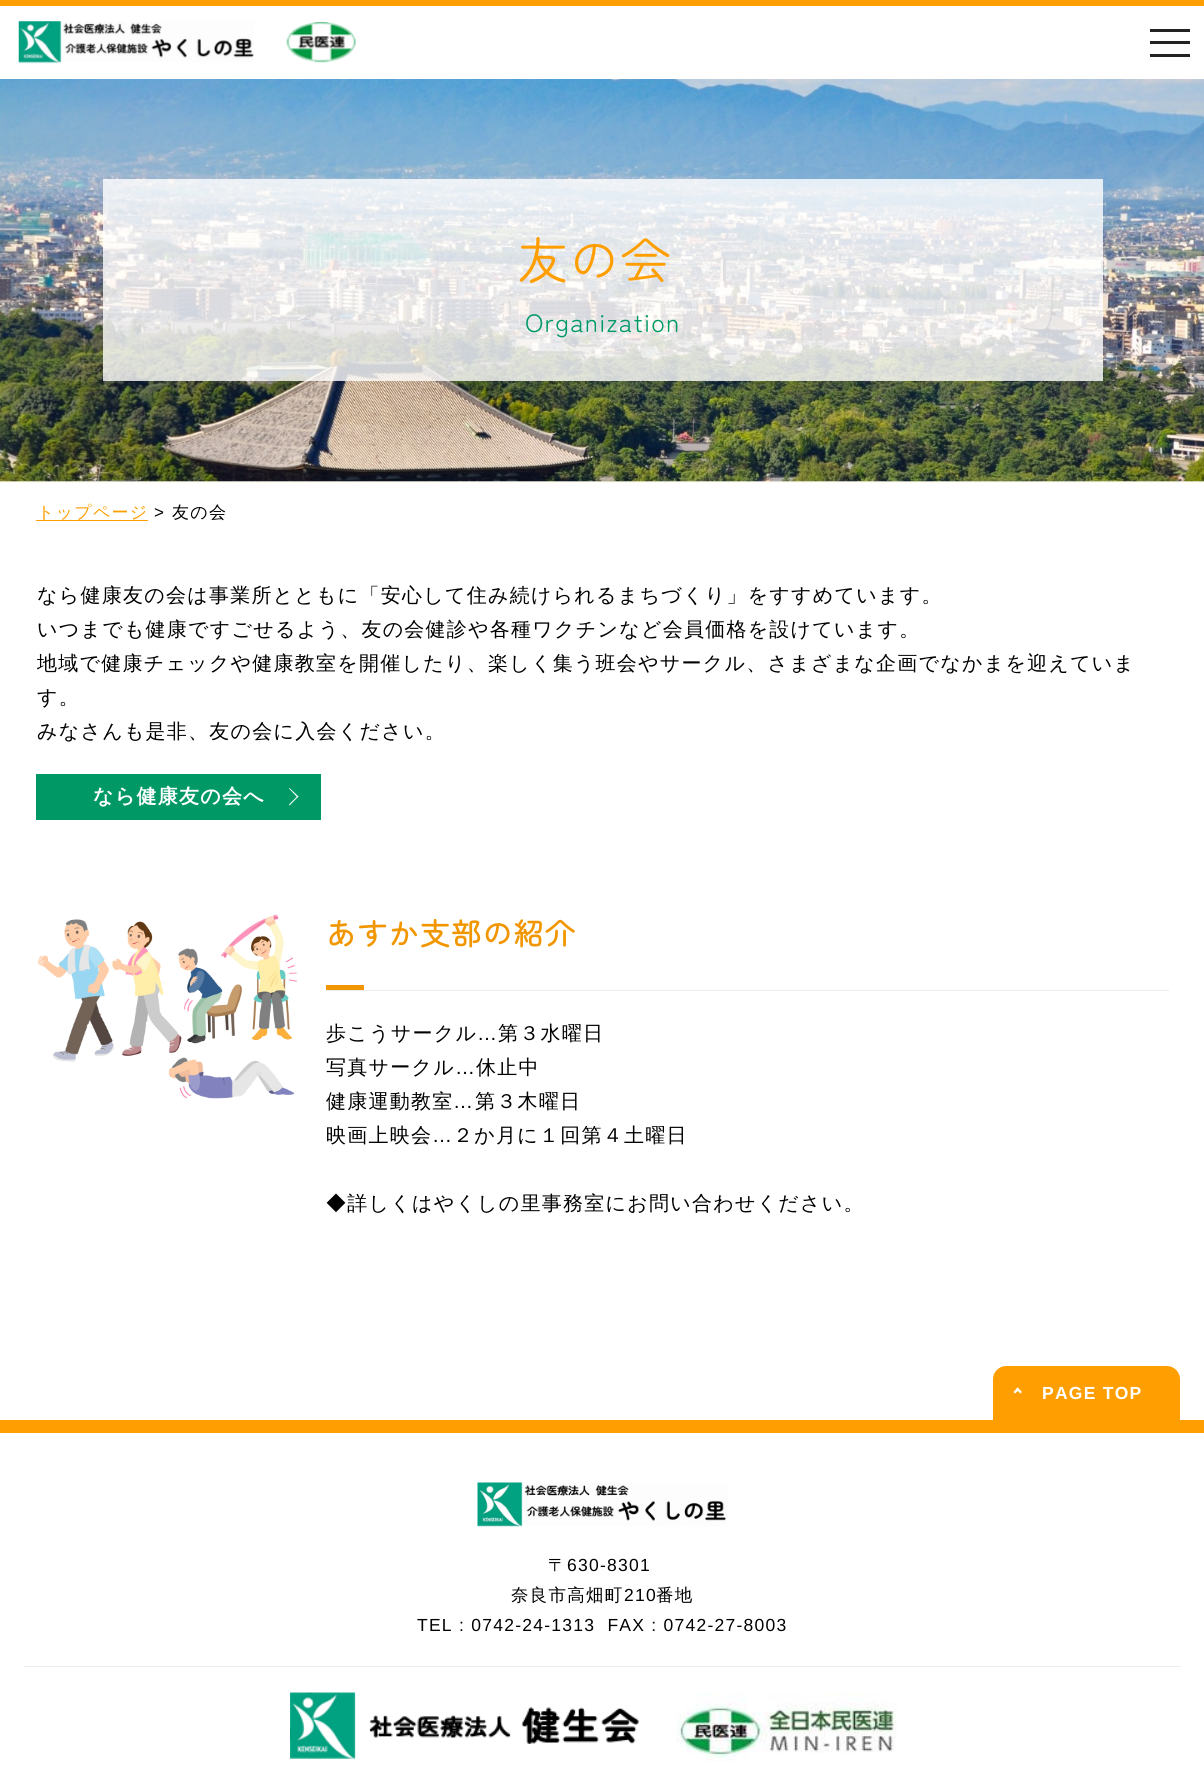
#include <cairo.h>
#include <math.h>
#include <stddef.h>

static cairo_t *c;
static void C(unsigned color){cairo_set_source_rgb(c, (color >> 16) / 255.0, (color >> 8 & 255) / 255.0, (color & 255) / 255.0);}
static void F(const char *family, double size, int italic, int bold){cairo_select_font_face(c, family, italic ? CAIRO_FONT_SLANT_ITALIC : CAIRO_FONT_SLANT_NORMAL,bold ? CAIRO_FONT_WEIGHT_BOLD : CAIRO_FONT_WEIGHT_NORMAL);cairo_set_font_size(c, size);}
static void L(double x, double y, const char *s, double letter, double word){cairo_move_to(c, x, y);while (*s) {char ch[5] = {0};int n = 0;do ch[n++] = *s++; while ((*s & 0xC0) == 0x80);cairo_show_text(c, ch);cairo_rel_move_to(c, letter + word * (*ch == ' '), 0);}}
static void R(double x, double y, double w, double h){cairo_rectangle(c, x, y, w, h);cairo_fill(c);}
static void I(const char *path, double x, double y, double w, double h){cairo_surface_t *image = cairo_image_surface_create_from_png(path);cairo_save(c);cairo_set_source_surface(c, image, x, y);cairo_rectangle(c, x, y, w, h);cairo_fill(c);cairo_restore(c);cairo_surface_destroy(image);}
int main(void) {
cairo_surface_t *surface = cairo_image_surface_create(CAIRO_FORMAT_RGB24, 1204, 1792);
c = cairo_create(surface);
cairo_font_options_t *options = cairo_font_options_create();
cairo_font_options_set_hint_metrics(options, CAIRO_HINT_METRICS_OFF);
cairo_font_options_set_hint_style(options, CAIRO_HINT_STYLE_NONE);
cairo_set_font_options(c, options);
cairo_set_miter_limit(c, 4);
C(0xffffff);
cairo_paint(c);
C(0xff9e00);
R(0,0,1204,6);
I("1.png",18,21,236,43);
I("2.png",286,22,70,41);
C(0x222222);
R(1150,41,40,3);
R(1150,29,40,3);
R(1150,54,40,3);
C(0xfffceb);
R(0,482,1204,1);
C(0xededed);
R(0,481,1204,1);
I("3.png",0,79,1204,403);
cairo_set_source_rgba(c,1,1,1,0.8);
R(103,179,1000,202);
F("Zen Maru Gothic",50,0,0);
C(0xff9e00);
L(518,279,"友の会",1.25,0);
F("Zen Maru Gothic",25,0,0);
C(0x009966);
L(525,332,"Organization",1.25,0);
C(0xff9e00);
R(36,520,112,1);
F("WenQuanYi Zen Hei Medium",17,0,0);
L(37,518,"トップページ",1.25,0);
F("Liberation Sans",17,0,0);
C(0x000000);
L(154,518,">",1.25,0);
F("WenQuanYi Zen Hei Medium",17,0,0);
L(172,518,"友の会",1.25,0);
F("WenQuanYi Zen Hei Medium",20,0,0);
L(37,602,"なら健康友の会は事業所とともに「安心して住み続けられるまちづくり」をすすめています。",1.25,0);
L(37,636,"いつまでも健康ですごせるよう、友の会健診や各種ワクチンなど会員価格を設けています。",1.25,0);
L(37,670,"地域で健康チェックや健康教室を開催したり、楽しく集う班会やサークル、さまざまな企画でなかまを迎えていま",1.25,0);
L(37,704,"す。",1.25,0);
L(37,738,"みなさんも是非、友の会に入会ください。",1.25,0);
C(0x009966);
R(36,774,285,46);
F("WenQuanYi Zen Hei",20,0,1);
C(0xffffff);
L(93,803,"なら健康友の会へ",1.25,0);
cairo_new_path(c);
cairo_move_to(c,289.5,788);
cairo_line_to(c,298.5,796.5);
cairo_line_to(c,297.5,797.5);
cairo_line_to(c,289,788.5);
cairo_close_path(c);
cairo_fill(c);
cairo_new_path(c);
cairo_move_to(c,297.5,796);
cairo_line_to(c,298.5,796.5);
cairo_line_to(c,289.5,805.5);
cairo_line_to(c,289,804.5);
cairo_close_path(c);
cairo_fill(c);
I("4.png",37,914,261,185);
C(0xededed);
R(326,990,843,1);
F("Zen Maru Gothic",30,0,1);
C(0xf29600);
L(326,945,"あすか支部の紹介",1.25,0);
R(326,985,38,5);
F("WenQuanYi Zen Hei Medium",20,0,0);
C(0x000000);
L(326,1040,"歩こうサークル",1.25,0);
F("Liberation Sans",20,0,0);
L(477,1040,"…",1.25,0);
F("WenQuanYi Zen Hei Medium",20,0,0);
L(498,1040,"第３水曜日",1.25,0);
L(326,1074,"写真サークル",1.25,0);
F("Liberation Sans",20,0,0);
L(455,1074,"…",1.25,0);
F("WenQuanYi Zen Hei Medium",20,0,0);
L(476,1074,"休止中",1.25,0);
L(326,1108,"健康運動教室",1.25,0);
F("Liberation Sans",20,0,0);
L(453,1108,"…",1.25,0);
F("WenQuanYi Zen Hei Medium",20,0,0);
L(475,1108,"第３木曜日",1.25,0);
L(326,1142,"映画上映会",1.25,0);
F("Liberation Sans",20,0,0);
L(432,1142,"…",1.25,0);
F("WenQuanYi Zen Hei Medium",20,0,0);
L(453,1142,"２か月に１回第４土曜日",1.25,0);
L(326,1210,"◆詳しくはやくしの里事務室にお問い合わせください。",1.25,0);
C(0xff9e00);
R(0,1420,1204,13);
cairo_new_path(c);
cairo_move_to(c,1006,1366);
cairo_line_to(c,1167,1366);
cairo_curve_to(c,1174,1366,1180,1372,1180,1379);
cairo_line_to(c,1180,1421);
cairo_line_to(c,993,1421);
cairo_line_to(c,993,1379);
cairo_curve_to(c,993,1372,999,1366,1006,1366);
cairo_close_path(c);
cairo_fill(c);
C(0xffffff);
cairo_new_path(c);
cairo_move_to(c,1013.5,1392);
cairo_line_to(c,1017.5,1387.5);
cairo_line_to(c,1019.5,1389.5);
cairo_line_to(c,1015,1393.5);
cairo_close_path(c);
cairo_fill(c);
cairo_new_path(c);
cairo_move_to(c,1016,1389.5);
cairo_line_to(c,1017.5,1387.5);
cairo_line_to(c,1022,1392);
cairo_line_to(c,1020.5,1393.5);
cairo_close_path(c);
cairo_fill(c);
F("Liberation Sans",17.5,0,1);
L(1042,1399,"PAGE TOP",1.25,0);
I("5.png",477,1482,251,45);
F("WenQuanYi Zen Hei Medium",17.5,0,0);
C(0x000000);
L(548,1571,"〒",1.25,0);
F("Liberation Sans",17.5,0,0);
L(567,1571,"630-8301",1.25,0);
F("WenQuanYi Zen Hei Medium",17.5,0,0);
L(511,1601,"奈良市高畑町",1.25,0);
F("Liberation Sans",17.5,0,0);
L(624,1601,"210",1.25,0);
F("WenQuanYi Zen Hei Medium",17.5,0,0);
L(656,1601,"番地",1.25,0);
F("Liberation Sans",17.5,0,0);
L(417,1631,"TEL : 0742-24-1313  FAX : 0742-27-8003",1.25,0);
C(0xededed);
R(24,1666,1157,1);
I("6.png",290,1692,349,67);
I("7.png",676,1693,221,69);
cairo_surface_write_to_png(surface, "o.png");
cairo_font_options_destroy(options);
cairo_destroy(c);
cairo_surface_destroy(surface);
return 0;
}
